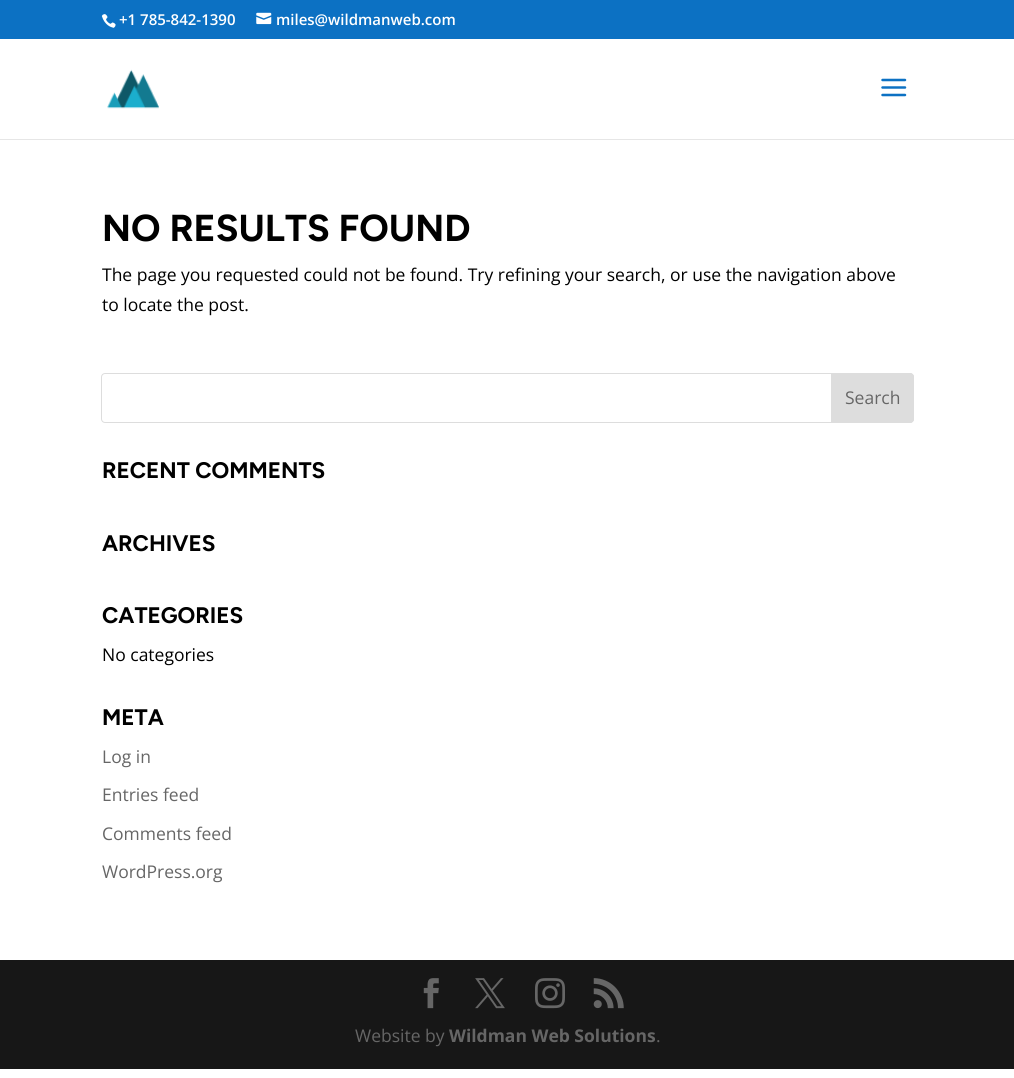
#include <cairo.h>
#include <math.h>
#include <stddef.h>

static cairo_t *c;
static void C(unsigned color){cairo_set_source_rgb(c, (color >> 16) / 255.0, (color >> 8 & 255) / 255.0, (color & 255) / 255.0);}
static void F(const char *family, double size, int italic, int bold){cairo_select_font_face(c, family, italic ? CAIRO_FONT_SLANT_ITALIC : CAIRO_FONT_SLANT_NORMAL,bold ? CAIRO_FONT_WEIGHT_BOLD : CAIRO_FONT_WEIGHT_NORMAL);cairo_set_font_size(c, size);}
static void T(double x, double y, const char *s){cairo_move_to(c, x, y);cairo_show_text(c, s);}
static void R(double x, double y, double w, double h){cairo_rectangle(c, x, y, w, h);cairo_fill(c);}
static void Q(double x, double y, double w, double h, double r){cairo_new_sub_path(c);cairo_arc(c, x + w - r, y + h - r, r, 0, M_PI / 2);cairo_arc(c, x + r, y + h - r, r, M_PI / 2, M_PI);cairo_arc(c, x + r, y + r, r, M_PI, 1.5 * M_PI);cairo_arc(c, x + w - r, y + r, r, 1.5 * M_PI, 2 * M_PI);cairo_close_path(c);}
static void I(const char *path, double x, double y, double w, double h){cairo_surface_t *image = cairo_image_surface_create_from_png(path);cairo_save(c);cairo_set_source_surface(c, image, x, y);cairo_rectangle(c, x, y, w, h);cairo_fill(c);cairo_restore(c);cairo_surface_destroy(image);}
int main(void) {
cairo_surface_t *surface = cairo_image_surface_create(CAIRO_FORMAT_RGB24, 1014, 1078);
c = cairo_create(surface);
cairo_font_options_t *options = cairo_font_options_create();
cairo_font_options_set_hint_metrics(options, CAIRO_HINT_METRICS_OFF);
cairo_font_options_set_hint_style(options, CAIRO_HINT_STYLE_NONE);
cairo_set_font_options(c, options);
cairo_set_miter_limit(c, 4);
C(0xffffff);
cairo_paint(c);
C(0x0c71c3);
R(0,0,1014,39);
I("1.png",101,14,15,14);
F("Open Sans SemiBold",15,0,0);
C(0xffffff);
T(119,25,"+1 785-842-1390");
I("2.png",256,12,16,13);
T(276,25,"miles@wildmanweb.com");
C(0xe6e6e6);
R(0,139,1014,1);
I("3.png",107,69,52,40);
I("4.png",881,78,26,19);
F("Figtree",37.5,0,1);
C(0x000000);
T(102,241,"NO RESULTS FOUND");
F("Open Sans",17.5,0,0);
T(102,281,"The page you requested could not be found. Try refining your search, or use the navigation above");
T(102,311,"to locate the post.");
Q(101.5,373.5,812,49,3.5);
C(0xdddddd);
cairo_set_line_width(c,1);
cairo_stroke(c);
cairo_new_path(c);
cairo_move_to(c,831.5,373.5);
cairo_line_to(c,910,373.5);
cairo_curve_to(c,912,373.5,913.5,375,913.5,377);
cairo_line_to(c,913.5,419);
cairo_curve_to(c,913.5,421,912,422.5,910,422.5);
cairo_line_to(c,831.5,422.5);
cairo_close_path(c);
cairo_fill_preserve(c);
cairo_stroke(c);
C(0x666666);
T(845,404,"Search");
F("Figtree",22.5,0,1);
C(0x000000);
T(102,478,"RECENT COMMENTS");
T(102,551,"ARCHIVES");
T(102,623,"CATEGORIES");
F("Open Sans",17.5,0,0);
T(102,661,"No categories");
F("Figtree",22.5,0,1);
T(102,725,"META");
F("Open Sans",17.5,0,0);
C(0x666666);
T(102,763,"Log in");
T(102,801,"Entries feed");
T(102,840,"Comments feed");
T(102,878,"WordPress.org");
C(0x171717);
R(0,960,1014,109);
I("5.png",423,978,16,31);
I("6.png",475,978,30,31);
I("7.png",535,978,30,31);
I("8.png",593,978,31,31);
C(0x666666);
T(355,1042,"Website by");
F("Open Sans",17.5,0,1);
T(449,1042,"Wildman Web Solutions");
F("Open Sans",17.5,0,0);
T(656,1042,".");
cairo_surface_write_to_png(surface, "o.png");
cairo_font_options_destroy(options);
cairo_destroy(c);
cairo_surface_destroy(surface);
return 0;
}
